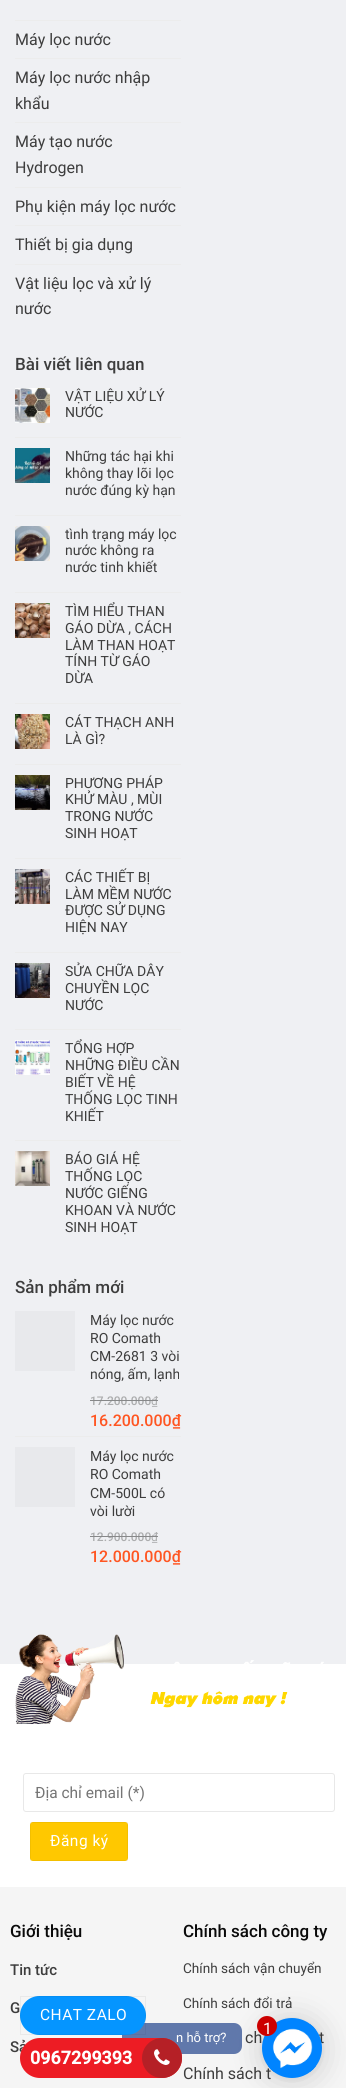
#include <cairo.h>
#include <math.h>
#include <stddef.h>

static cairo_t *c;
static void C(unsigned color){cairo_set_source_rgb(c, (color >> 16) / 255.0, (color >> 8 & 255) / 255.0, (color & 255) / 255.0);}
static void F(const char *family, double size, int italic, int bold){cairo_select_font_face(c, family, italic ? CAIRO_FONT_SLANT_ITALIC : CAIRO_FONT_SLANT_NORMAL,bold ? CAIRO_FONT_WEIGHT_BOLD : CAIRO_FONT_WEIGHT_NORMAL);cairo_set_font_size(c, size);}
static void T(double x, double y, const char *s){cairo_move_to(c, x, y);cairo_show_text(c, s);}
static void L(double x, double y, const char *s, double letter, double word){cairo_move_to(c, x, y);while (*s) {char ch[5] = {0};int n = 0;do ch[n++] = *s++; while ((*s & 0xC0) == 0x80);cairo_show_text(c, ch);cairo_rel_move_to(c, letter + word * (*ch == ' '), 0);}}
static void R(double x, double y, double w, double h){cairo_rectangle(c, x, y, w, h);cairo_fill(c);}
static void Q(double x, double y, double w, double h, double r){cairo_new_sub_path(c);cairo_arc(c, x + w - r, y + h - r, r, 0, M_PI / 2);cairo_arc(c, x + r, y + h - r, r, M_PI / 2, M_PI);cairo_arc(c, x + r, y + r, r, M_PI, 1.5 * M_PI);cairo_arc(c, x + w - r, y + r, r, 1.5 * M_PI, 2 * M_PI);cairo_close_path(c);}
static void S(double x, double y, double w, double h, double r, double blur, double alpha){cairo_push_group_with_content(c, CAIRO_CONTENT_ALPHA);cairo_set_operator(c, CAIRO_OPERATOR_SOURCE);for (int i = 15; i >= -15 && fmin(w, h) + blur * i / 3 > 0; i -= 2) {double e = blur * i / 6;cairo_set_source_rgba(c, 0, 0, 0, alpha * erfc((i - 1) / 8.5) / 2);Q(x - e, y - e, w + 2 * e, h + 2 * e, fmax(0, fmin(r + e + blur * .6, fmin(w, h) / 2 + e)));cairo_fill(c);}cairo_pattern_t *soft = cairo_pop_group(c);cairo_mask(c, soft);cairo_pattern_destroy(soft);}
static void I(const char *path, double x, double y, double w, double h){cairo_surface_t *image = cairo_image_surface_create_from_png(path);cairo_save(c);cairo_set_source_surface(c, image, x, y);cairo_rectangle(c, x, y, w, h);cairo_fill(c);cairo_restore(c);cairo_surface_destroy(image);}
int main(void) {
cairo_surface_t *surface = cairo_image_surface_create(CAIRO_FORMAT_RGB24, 346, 2088);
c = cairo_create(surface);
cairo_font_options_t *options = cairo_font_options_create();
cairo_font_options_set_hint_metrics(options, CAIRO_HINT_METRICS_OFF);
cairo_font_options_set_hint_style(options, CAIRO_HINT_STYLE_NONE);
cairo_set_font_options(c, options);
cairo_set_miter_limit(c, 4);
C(0xffffff);
cairo_paint(c);
C(0xeff0f3);
R(0,0,346,1664);
C(0xececec);
R(15,20,166,1);
F("Roboto",16,0,0);
C(0x3d3d3d);
T(15,45,"Máy lọc nước");
C(0xececec);
R(15,58,166,1);
C(0x3d3d3d);
T(15,83,"Máy lọc nước nhập");
T(15,109,"khẩu");
C(0xececec);
R(15,122,166,1);
C(0x3d3d3d);
T(15,147,"Máy tạo nước");
T(15,173,"Hydrogen");
C(0xececec);
R(15,187,166,1);
C(0x3d3d3d);
T(15,212,"Phụ kiện máy lọc nước");
C(0xececec);
R(15,225,166,1);
C(0x3d3d3d);
T(15,250,"Thiết bị gia dụng");
C(0xececec);
R(15,264,166,1);
C(0x3d3d3d);
T(15,289,"Vật liệu lọc và xử lý");
T(15,314,"nước");
F("Roboto Medium",17,0,0);
T(15,370,"Bài viết liên quan");
I("1.png",15,388,35,35);
F("Roboto",14,0,0);
T(65,401,"VẬT LIỆU XỬ LÝ");
T(65,417,"NƯỚC");
C(0xececec);
R(15,437,166,1);
I("2.png",15,448,35,35);
C(0x3d3d3d);
T(65,461,"Những tác hại khi");
T(65,478,"không thay lõi lọc");
T(65,495,"nước đúng kỳ hạn");
C(0xececec);
R(15,515,166,1);
I("3.png",15,526,35,35);
C(0x3d3d3d);
T(65,539,"tình trạng máy lọc");
T(65,555,"nước không ra");
T(65,572,"nước tinh khiết");
C(0xececec);
R(15,592,166,1);
I("4.png",15,603,35,35);
C(0x3d3d3d);
T(65,616,"TÌM HIỂU THAN");
T(65,633,"GÁO DỪA , CÁCH");
T(65,650,"LÀM THAN HOẠT");
T(65,666,"TÍNH TỪ GÁO");
T(65,683,"DỪA");
C(0xececec);
R(15,703,166,1);
I("5.png",15,714,35,35);
C(0x3d3d3d);
T(65,727,"CÁT THẠCH ANH");
T(65,744,"LÀ GÌ?");
C(0xececec);
R(15,764,166,1);
I("6.png",15,775,35,35);
C(0x3d3d3d);
T(65,788,"PHƯƠNG PHÁP");
T(65,804,"KHỬ MÀU , MÙI");
T(65,821,"TRONG NƯỚC");
T(65,838,"SINH HOẠT");
C(0xececec);
R(15,858,166,1);
I("7.png",15,869,35,35);
C(0x3d3d3d);
T(65,882,"CÁC THIẾT BỊ");
T(65,899,"LÀM MỀM NƯỚC");
T(65,915,"ĐƯỢC SỬ DỤNG");
T(65,932,"HIỆN NAY");
C(0xececec);
R(15,952,166,1);
I("8.png",15,963,35,35);
C(0x3d3d3d);
T(65,976,"SỬA CHỮA DÂY");
T(65,993,"CHUYỀN LỌC");
T(65,1010,"NƯỚC");
C(0xececec);
R(15,1029,166,1);
I("9.png",15,1040,35,35);
C(0x3d3d3d);
T(65,1053,"TỔNG HỢP");
T(65,1070,"NHỮNG ĐIỀU CẦN");
T(65,1087,"BIẾT VỀ HỆ");
T(65,1104,"THỐNG LỌC TINH");
T(65,1121,"KHIẾT");
C(0xececec);
R(15,1140,166,1);
I("10.png",15,1151,35,35);
C(0x3d3d3d);
T(65,1164,"BÁO GIÁ HỆ");
T(65,1181,"THỐNG LỌC");
T(65,1198,"NƯỚC GIẾNG");
T(65,1215,"KHOAN VÀ NƯỚC");
T(65,1232,"SINH HOẠT");
F("Roboto Medium",17,0,0);
T(15,1293,"Sản phẩm mới");
C(0xe8e9ec);
R(15,1311,60,60);
F("Roboto",14,0,0);
C(0x3d3d3d);
T(90,1325,"Máy lọc nước");
T(90,1343,"RO Comath");
T(90,1361,"CM-2681 3 vòi");
T(90,1379,"nóng, ấm, lạnh");
F("Roboto Medium",12,0,0);
C(0xacadae);
T(90,1405,"17.200.000");
C(0x878889);
R(90,1400,61,1);
F("Roboto",12,0,0);
C(0xacadae);
T(151,1405,"₫");
C(0x878889);
R(151,1400,7,1);
F("Roboto Medium",16,0,0);
C(0xff5622);
T(90,1426,"16.200.000₫");
C(0xececec);
R(15,1436,166,1);
C(0xe8e9ec);
R(15,1447,60,60);
F("Roboto",14,0,0);
C(0x3d3d3d);
T(90,1461,"Máy lọc nước");
T(90,1479,"RO Comath");
T(90,1498,"CM-500L có");
T(90,1516,"vòi lười");
F("Roboto Medium",12,0,0);
C(0xacadae);
T(90,1541,"12.900.000");
C(0x878889);
R(90,1536,61,1);
F("Roboto",12,0,0);
C(0xacadae);
T(151,1541,"₫");
C(0x878889);
R(151,1536,7,1);
F("Roboto Medium",16,0,0);
C(0xff5622);
T(90,1562,"12.000.000₫");
I("11.png",15,1634,309,90);
Q(23.5,1773.5,311,38,2.5);
C(0xe8e8e8);
cairo_set_line_width(c,1);
cairo_stroke(c);
F("Roboto",15.5,0,0);
C(0x757575);
T(35,1798,"Địa chỉ email (*)");
C(0xffc800);
Q(30,1822,98,39,3);
cairo_fill(c);
cairo_rectangle(c,30.5,1822.5,97,38);
cairo_set_source_rgba(c,0,0,0,0.05);
cairo_stroke(c);
C(0xffffff);
L(50,1846,"Đăng ký",.5,0);
C(0xf5f5f5);
R(0,1887,346,201);
F("Roboto Medium",17,0,0);
C(0x0a0a0a);
T(10,1937,"Giới thiệu");
F("Roboto Medium",15,0,0);
C(0x3d3d3d);
T(10,1975,"Tin tức");
T(10,2013,"G");
T(10,2052,"Sả");
F("Roboto Medium",17,0,0);
C(0x0a0a0a);
T(183,1937,"Chính sách công ty");
F("Roboto",13.6,0,0);
C(0x3d3d3d);
T(183,1973,"Chính sách vận chuyển");
T(183,2008,"Chính sách đổi trả");
F("Roboto",16,0,0);
T(245,2043,"ch");
T(319,2043,"t");
T(183,2079,"Chính sách t");
C(0x000000);
S(262,2020,60,60,30,16,.16);
cairo_set_source_rgba(c,0.231,0.349,0.596,0.8);
Q(122,2023,120,31,8);
cairo_fill(c);
C(0x0595ff);
Q(20,1996,126,39,19.5);
cairo_fill(c);
cairo_rectangle(c,20.5,1996.5,125,38);
cairo_set_source_rgba(c,0,0,0,0.05);
cairo_stroke(c);
F("Roboto",15.5,0,0);
C(0xffffff);
L(40,2020,"CHAT ZALO",.5,0);
C(0x000000);
S(262,2019,60,60,30,3,.06);
C(0x0084ff);
cairo_arc(c,292,2048,30,0,2 * M_PI);
cairo_fill(c);
I("12.png",268,2024,48,48);
C(0xcc0000);
cairo_arc(c,267,2026,10,0,2 * M_PI);
cairo_fill(c);
F("Roboto",16,0,0);
C(0xffffff);
T(263,2034,"1");
F("Roboto",13,0,0);
T(176,2042,"n hỗ trợ?");
C(0xed1c24);
Q(20,2038,162,40,20);
cairo_fill(c);
F("Roboto",18,0,1);
C(0xffffff);
T(30,2064,"0967299393");
C(0xb52026);
cairo_new_path(c);
cairo_arc(c,162,2058,20,0,2 * M_PI);
cairo_fill(c);
I("13.png",154,2049,16,16);
cairo_surface_write_to_png(surface, "o.png");
cairo_font_options_destroy(options);
cairo_destroy(c);
cairo_surface_destroy(surface);
return 0;
}
